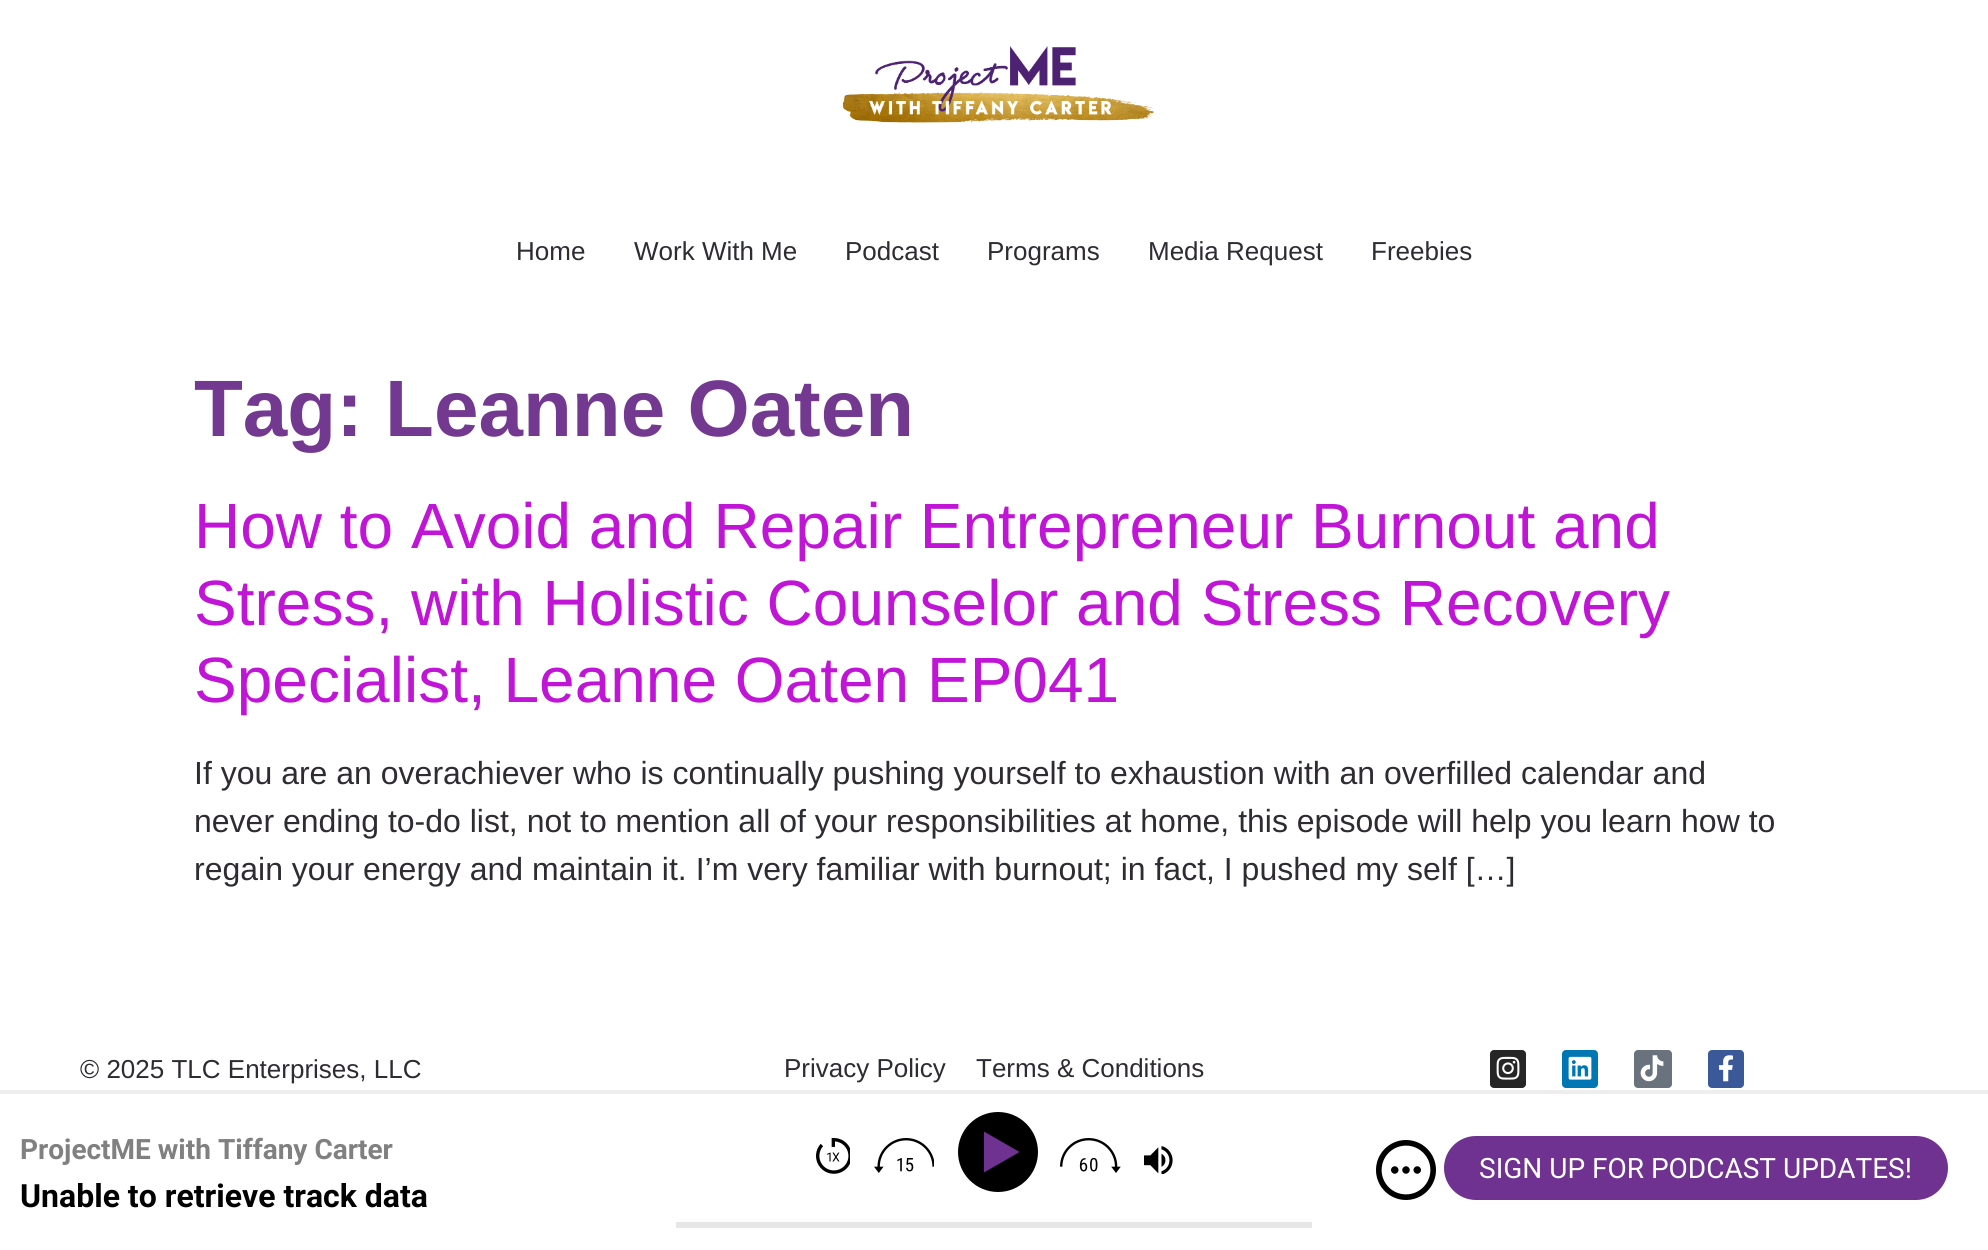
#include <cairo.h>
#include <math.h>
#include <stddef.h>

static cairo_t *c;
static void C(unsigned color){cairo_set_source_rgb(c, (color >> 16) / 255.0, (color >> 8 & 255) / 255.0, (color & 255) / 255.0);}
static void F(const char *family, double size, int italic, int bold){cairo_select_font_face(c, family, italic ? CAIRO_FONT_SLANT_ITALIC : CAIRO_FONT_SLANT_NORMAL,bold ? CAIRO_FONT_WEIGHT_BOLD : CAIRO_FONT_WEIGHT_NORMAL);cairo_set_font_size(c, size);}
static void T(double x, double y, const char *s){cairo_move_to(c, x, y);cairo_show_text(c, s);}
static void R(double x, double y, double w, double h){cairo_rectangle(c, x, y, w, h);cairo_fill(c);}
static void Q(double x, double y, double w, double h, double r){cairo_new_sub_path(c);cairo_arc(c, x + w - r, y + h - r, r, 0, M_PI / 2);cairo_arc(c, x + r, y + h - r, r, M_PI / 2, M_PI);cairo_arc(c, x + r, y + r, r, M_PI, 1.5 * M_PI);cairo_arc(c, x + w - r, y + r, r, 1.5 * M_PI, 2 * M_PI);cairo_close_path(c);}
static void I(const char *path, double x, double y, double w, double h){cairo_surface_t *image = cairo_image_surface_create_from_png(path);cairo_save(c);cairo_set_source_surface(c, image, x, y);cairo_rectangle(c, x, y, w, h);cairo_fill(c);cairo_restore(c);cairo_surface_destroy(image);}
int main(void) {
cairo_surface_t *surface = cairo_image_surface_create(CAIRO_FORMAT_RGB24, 1988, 1250);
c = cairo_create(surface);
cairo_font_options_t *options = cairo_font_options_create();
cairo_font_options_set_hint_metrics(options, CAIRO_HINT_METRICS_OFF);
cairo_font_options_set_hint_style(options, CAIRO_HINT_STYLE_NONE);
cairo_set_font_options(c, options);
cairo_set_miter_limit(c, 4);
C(0xffffff);
cairo_paint(c);
I("1.png",842,46,312,77);
F("Liberation Sans",26,0,0);
C(0x2e2b32);
T(516,260,"Home");
T(634,260,"Work With Me");
T(845,260,"Podcast");
T(987,260,"Programs");
T(1148,260,"Media Request");
T(1371,260,"Freebies");
F("Liberation Sans",80,0,1);
C(0x733991);
T(194,436,"Tag: Leanne Oaten");
F("Liberation Sans",64,0,0);
C(0xc015d6);
T(194,548,"How to Avoid and Repair Entrepreneur Burnout and");
T(194,625,"Stress, with Holistic Counselor and Stress Recovery");
T(194,702,"Specialist, Leanne Oaten EP041");
F("Liberation Sans",32,0,0);
C(0x2e2b32);
T(194,784,"If you are an overachiever who is continually pushing yourself to exhaustion with an overfilled calendar and");
T(194,832,"never ending to-do list, not to mention all of your responsibilities at home, this episode will help you learn how to");
T(194,880,"regain your energy and maintain it. I’m very familiar with burnout; in fact, I pushed my self […]");
F("Liberation Sans",26,0,0);
T(80,1078,"© 2025 TLC Enterprises, LLC");
T(784,1077,"Privacy Policy");
T(976,1077,"Terms & Conditions");
C(0x262626);
Q(1490,1050,36,38,4);
cairo_fill(c);
I("2.png",1496,1056,24,24);
C(0x0077b5);
Q(1562,1050,36,38,4);
cairo_fill(c);
I("3.png",1568,1056,24,24);
C(0x69727d);
Q(1634,1050,38,38,4);
cairo_fill(c);
I("4.png",1640,1055,24,27);
C(0x3b5998);
Q(1708,1050,36,38,4);
cairo_fill(c);
I("5.png",1719,1055,14,27);
C(0xeeeeee);
R(0,1090,1988,4);
I("6.png",816,1138,34,36);
I("7.png",874,1138,60,35);
C(0x000000);
cairo_arc(c,998,1152,40,0,2 * M_PI);
cairo_fill(c);
C(0x6f3291);
R(984,1132,14,41);
R(998,1139,22,26);
cairo_save(c);
cairo_rectangle(c,972,1126,52,52);
cairo_clip(c);
C(0x000000);
cairo_new_path(c);
cairo_move_to(c,1004,1095);
cairo_line_to(c,1058,1126);
cairo_line_to(c,1037,1162);
cairo_line_to(c,983,1131);
cairo_close_path(c);
cairo_fill(c);
cairo_new_path(c);
cairo_move_to(c,983,1173);
cairo_line_to(c,1037,1142);
cairo_line_to(c,1058,1178);
cairo_line_to(c,1004,1209);
cairo_close_path(c);
cairo_fill(c);
cairo_restore(c);
I("8.png",1060,1138,61,35);
I("9.png",1144,1146,29,28);
F("Roboto",28,0,1);
C(0x808080);
T(20,1159,"ProjectME with Tiffany Carter");
F("Roboto",32,0,1);
C(0x000000);
T(20,1207,"Unable to retrieve track data");
I("10.png",1376,1140,60,60);
C(0x6f3291);
Q(1444,1136,504,64,32);
cairo_fill(c);
F("Roboto",28,0,0);
C(0xffffff);
T(1479,1178,"SIGN UP FOR PODCAST UPDATES!");
C(0xe6e6e6);
R(676,1222,636,6);
cairo_surface_write_to_png(surface, "o.png");
cairo_font_options_destroy(options);
cairo_destroy(c);
cairo_surface_destroy(surface);
return 0;
}
